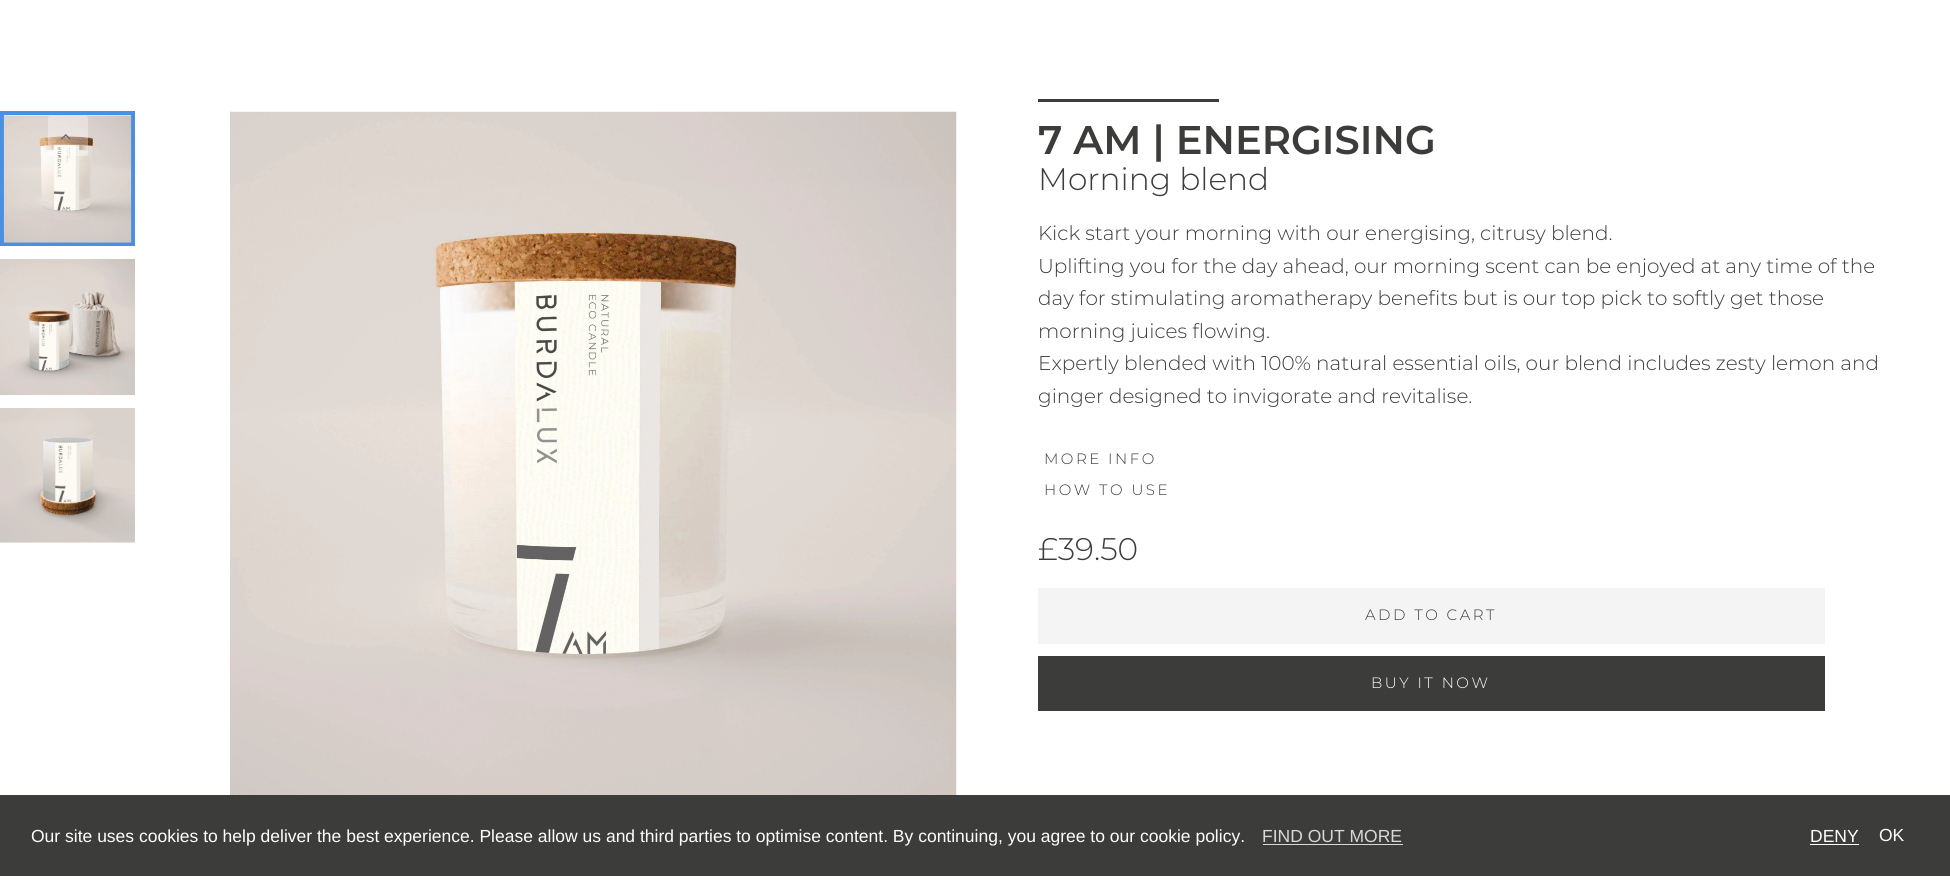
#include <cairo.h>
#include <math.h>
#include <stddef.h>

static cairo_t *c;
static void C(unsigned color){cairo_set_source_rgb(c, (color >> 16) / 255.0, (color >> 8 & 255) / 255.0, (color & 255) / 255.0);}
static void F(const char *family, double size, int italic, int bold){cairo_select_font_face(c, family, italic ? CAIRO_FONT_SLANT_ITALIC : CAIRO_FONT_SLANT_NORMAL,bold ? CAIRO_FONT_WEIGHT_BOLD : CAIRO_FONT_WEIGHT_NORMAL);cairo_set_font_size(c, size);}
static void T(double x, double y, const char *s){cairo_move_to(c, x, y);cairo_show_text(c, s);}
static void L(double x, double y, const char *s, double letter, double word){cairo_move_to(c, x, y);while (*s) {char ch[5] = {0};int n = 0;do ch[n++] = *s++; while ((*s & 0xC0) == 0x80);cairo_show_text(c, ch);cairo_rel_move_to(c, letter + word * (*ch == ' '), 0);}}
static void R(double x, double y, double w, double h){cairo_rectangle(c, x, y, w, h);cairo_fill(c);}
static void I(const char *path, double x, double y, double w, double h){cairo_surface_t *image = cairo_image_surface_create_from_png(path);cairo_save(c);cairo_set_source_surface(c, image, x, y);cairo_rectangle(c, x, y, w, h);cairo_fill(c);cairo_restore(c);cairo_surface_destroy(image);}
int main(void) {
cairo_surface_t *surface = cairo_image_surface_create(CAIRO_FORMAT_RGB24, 1950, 893);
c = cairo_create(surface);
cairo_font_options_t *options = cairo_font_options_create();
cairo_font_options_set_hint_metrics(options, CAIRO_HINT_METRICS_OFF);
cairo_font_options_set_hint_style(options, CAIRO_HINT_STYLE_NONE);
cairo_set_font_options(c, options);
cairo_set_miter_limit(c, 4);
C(0xffffff);
cairo_paint(c);
cairo_rectangle(c,2,113,131,131);
C(0x4a90e2);
cairo_set_line_width(c,4);
cairo_stroke(c);
I("1.png",3,115,129,128);
I("2.png",0,259,135,137);
I("3.png",0,408,135,135);
cairo_set_source_rgba(c,1,1,1,0.35);
cairo_new_path(c);
cairo_move_to(c,88,119);
cairo_line_to(c,88,154);
cairo_curve_to(c,88,155,87,156,85,156);
cairo_line_to(c,50,156);
cairo_curve_to(c,49,156,48,155,48,154);
cairo_line_to(c,48,119);
cairo_curve_to(c,48,117,49,116,50,116);
cairo_line_to(c,85,116);
cairo_curve_to(c,87,116,88,117,88,119);
cairo_close_path(c);
cairo_fill(c);
I("4.png",61,134,10,6);
I("5.png",230,111,727,684);
C(0x3c3c3b);
R(1038,99,181,3);
F("Montserrat SemiBold",40,0,0);
T(1038,154,"7 AM | ENERGISING");
F("Montserrat Light",31.25,0,0);
T(1038,190,"Morning blend");
F("Montserrat Light",20,0,0);
T(1038,240,"Kick start your morning with our energising, citrusy blend.");
T(1038,273,"Uplifting you for the day ahead, our morning scent can be enjoyed at any time of the");
T(1038,305,"day for stimulating aromatherapy benefits but is our top pick to softly get those");
T(1038,338,"morning juices flowing.");
T(1038,370,"Expertly blended with 100% natural essential oils, our blend includes zesty lemon and");
T(1038,403,"ginger designed to invigorate and revitalise.");
F("Montserrat Light",15,0,0);
L(1044,464,"MORE INFO",2.5,0);
L(1044,495,"HOW TO USE",2.5,0);
F("Montserrat Light",31.25,0,0);
T(1038,560,"£39.50");
C(0xf3f4f3);
R(1038,588,787,56);
F("Montserrat Light",15,0,0);
C(0x3c3c3b);
L(1365,620,"ADD TO CART",2.5,0);
R(1038,656,787,55);
C(0xffffff);
L(1371,688,"BUY IT NOW",2.5,0);
C(0x3c3c3b);
R(0,795,1950,81);
F("Liberation Sans",17.5,0,0);
C(0xffffff);
T(31,842,"Our site uses cookies to help deliver the best experience. Please allow us and third parties to optimise content. By continuing, you agree to our cookie policy.");
C(0xd8d8d8);
T(1262,842,"FIND OUT MORE");
R(1263,844,140,1);
C(0xffffff);
T(1810,842,"DENY");
R(1810,844,49,1);
T(1879,841,"OK");
cairo_surface_write_to_png(surface, "o.png");
cairo_font_options_destroy(options);
cairo_destroy(c);
cairo_surface_destroy(surface);
return 0;
}
